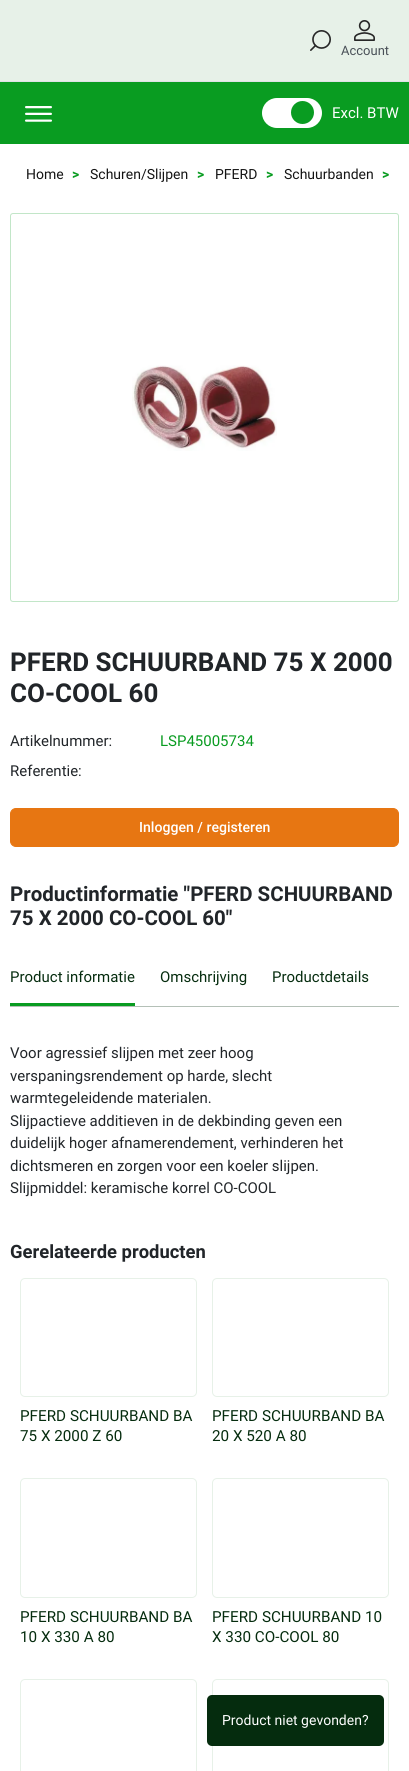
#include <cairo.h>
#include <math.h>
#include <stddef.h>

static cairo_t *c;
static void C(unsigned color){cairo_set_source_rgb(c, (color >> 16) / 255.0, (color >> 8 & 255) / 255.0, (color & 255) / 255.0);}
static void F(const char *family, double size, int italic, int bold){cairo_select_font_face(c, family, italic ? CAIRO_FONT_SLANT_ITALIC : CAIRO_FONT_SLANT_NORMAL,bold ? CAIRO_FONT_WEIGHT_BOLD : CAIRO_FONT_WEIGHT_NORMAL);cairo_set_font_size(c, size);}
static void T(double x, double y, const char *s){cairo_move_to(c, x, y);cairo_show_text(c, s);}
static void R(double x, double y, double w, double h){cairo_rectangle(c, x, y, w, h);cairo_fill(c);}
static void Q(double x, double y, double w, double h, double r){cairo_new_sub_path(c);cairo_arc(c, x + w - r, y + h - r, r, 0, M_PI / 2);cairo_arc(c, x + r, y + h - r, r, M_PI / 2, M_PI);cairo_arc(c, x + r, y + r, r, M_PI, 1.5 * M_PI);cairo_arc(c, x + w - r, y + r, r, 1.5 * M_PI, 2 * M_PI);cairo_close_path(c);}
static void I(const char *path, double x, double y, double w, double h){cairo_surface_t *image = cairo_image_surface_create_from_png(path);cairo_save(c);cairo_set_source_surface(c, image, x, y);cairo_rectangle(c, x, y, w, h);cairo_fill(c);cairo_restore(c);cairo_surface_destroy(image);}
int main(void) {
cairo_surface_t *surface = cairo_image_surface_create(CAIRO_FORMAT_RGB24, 409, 1771);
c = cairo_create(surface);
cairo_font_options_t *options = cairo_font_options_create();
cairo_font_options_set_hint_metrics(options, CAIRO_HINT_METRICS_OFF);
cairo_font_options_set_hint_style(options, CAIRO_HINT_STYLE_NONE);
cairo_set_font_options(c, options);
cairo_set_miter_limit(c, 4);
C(0xffffff);
cairo_paint(c);
C(0xe7f1e8);
R(0,0,409,81);
C(0xdee2e6);
R(0,81,409,1);
I("1.png",310,30,21,21);
I("2.png",354,20,21,21);
F("Roboto",13,0,0);
C(0x495057);
T(341,55,"Account");
C(0x099c21);
R(0,82,409,62);
I("3.png",25,106,27,16);
C(0xffffff);
Q(262,98,60,30,15);
cairo_fill(c);
C(0x099c21);
cairo_arc(c,302.5,112.5,11.5,0,2 * M_PI);
cairo_fill(c);
F("Roboto",15,0,0);
C(0xffffff);
T(332,118,"Excl. BTW");
F("Roboto",14,0,0);
C(0x141414);
T(26,179,"Home");
F("Roboto",14,0,1);
C(0x099c21);
T(72,179,">");
F("Roboto",14,0,0);
C(0x141414);
T(90,179,"Schuren/Slijpen");
F("Roboto",14,0,1);
C(0x099c21);
T(197,179,">");
F("Roboto",14,0,0);
C(0x141414);
T(215,179,"PFERD");
F("Roboto",14,0,1);
C(0x099c21);
T(266,179,">");
F("Roboto",14,0,0);
C(0x141414);
T(284,179,"Schuurbanden");
F("Roboto",14,0,1);
C(0x099c21);
T(382,179,">");
Q(10.5,213.5,388,388,2.5);
C(0xc2e6c8);
cairo_set_line_width(c,1);
cairo_stroke(c);
I("4.png",132,365,145,86);
F("Roboto",26,0,1);
C(0x212529);
T(10,671,"PFERD SCHUURBAND 75 X 2000");
T(10,702,"CO-COOL 60");
F("Roboto",15,0,0);
T(10,746,"Artikelnummer:");
C(0x099c21);
T(160,746,"LSP45005734");
C(0x212529);
T(10,776,"Referentie:");
C(0xe77612);
Q(10.5,808.5,388,38,5.5);
cairo_fill_preserve(c);
cairo_stroke(c);
F("Roboto Medium",14.1,0,0);
C(0xffffff);
T(139,832,"Inloggen / registeren");
F("Roboto",20.5,0,1);
C(0x212529);
T(10,901,"Productinformatie \"PFERD SCHUURBAND");
T(10,925,"75 X 2000 CO-COOL 60\"");
C(0xb4c0b7);
R(10,1006,389,1);
C(0x099c21);
R(10,1003,125,3);
F("Roboto",15,0,0);
C(0x052c0e);
T(10,982,"Product informatie");
T(160,982,"Omschrijving");
T(272,982,"Productdetails");
C(0x212529);
T(10,1058,"Voor agressief slijpen met zeer hoog");
T(10,1081,"verspaningsrendement op harde, slecht");
T(10,1103,"warmtegeleidende materialen.");
T(10,1126,"Slijpactieve additieven in de dekbinding geven een");
T(10,1148,"duidelijk hoger afnamerendement, verhinderen het");
T(10,1171,"dichtsmeren en zorgen voor een koeler slijpen.");
T(10,1193,"Slijpmiddel: keramische korrel CO-COOL");
F("Roboto",18.4,0,1);
T(10,1258,"Gerelateerde producten");
Q(20.5,1278.5,176,118,4.5);
C(0xe7f1e8);
cairo_stroke(c);
F("Roboto",15.25,0,0);
C(0x052c0e);
T(20,1421,"PFERD SCHUURBAND BA");
T(20,1441,"75 X 2000 Z 60");
Q(212.5,1278.5,176,118,4.5);
C(0xe7f1e8);
cairo_stroke(c);
C(0x052c0e);
T(212,1421,"PFERD SCHUURBAND BA");
T(212,1441,"20 X 520 A 80");
Q(20.5,1478.5,176,119,4.5);
C(0xe7f1e8);
cairo_stroke(c);
C(0x052c0e);
T(20,1622,"PFERD SCHUURBAND BA");
T(20,1642,"10 X 330 A 80");
Q(212.5,1478.5,176,119,4.5);
C(0xe7f1e8);
cairo_stroke(c);
C(0x052c0e);
T(212,1622,"PFERD SCHUURBAND 10");
T(212,1642,"X 330 CO-COOL 80");
Q(20.5,1679.5,176,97,4.5);
C(0xe7f1e8);
cairo_stroke(c);
Q(212.5,1679.5,176,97,4.5);
cairo_stroke(c);
C(0x052c0e);
Q(207,1695,177,51,5);
cairo_fill(c);
F("Roboto",14,0,0);
C(0xffffff);
T(222,1725,"Product niet gevonden?");
cairo_surface_write_to_png(surface, "o.png");
cairo_font_options_destroy(options);
cairo_destroy(c);
cairo_surface_destroy(surface);
return 0;
}
